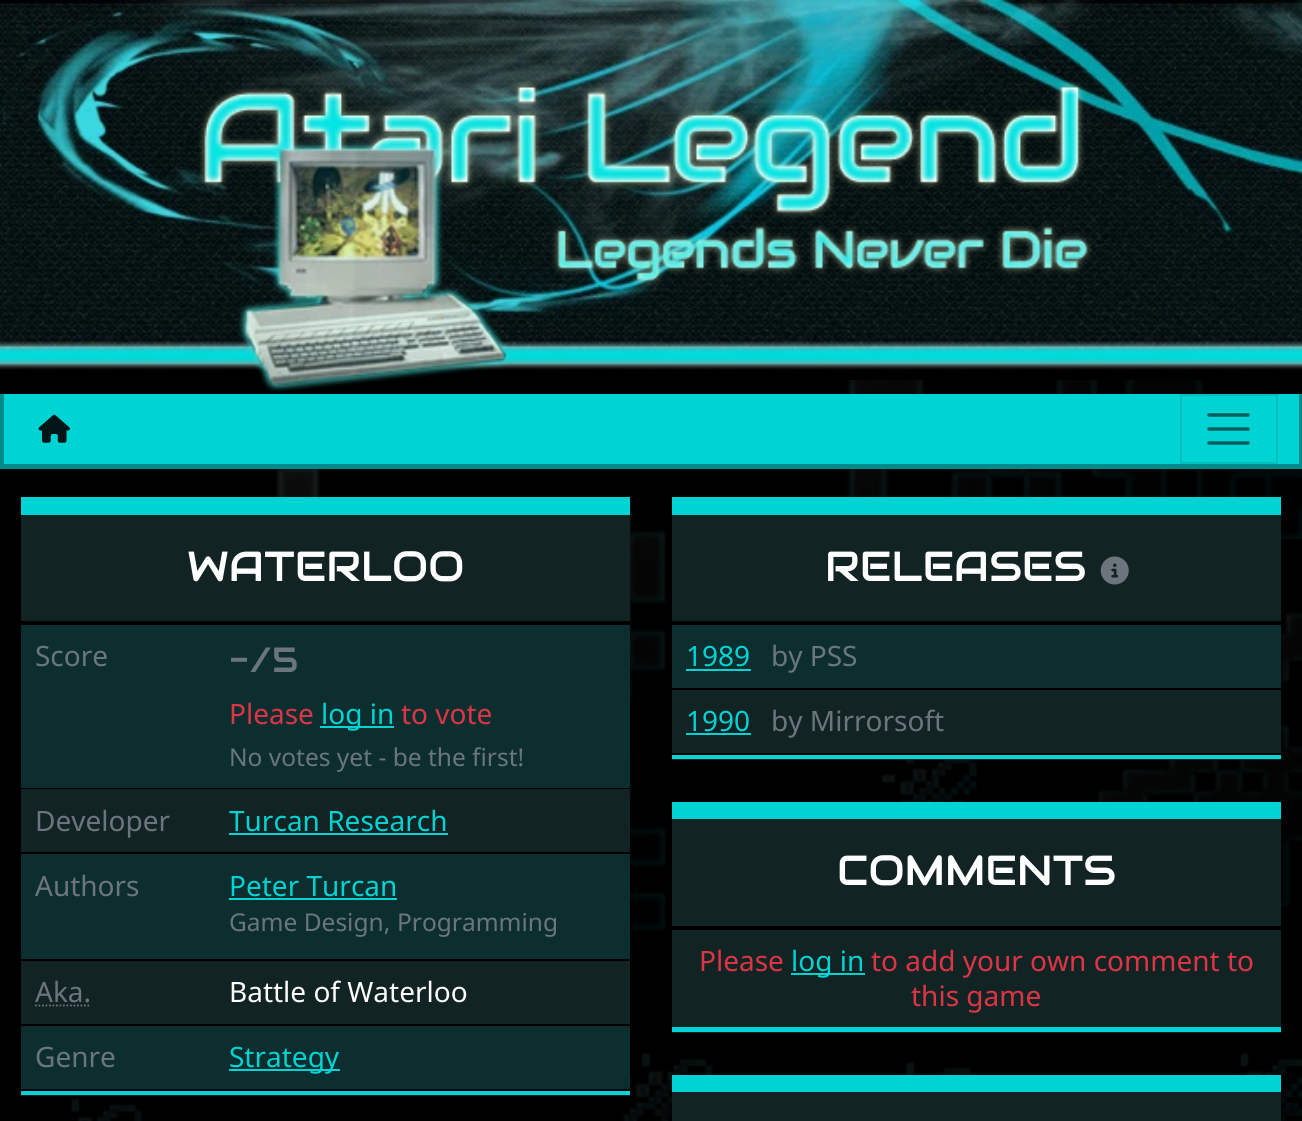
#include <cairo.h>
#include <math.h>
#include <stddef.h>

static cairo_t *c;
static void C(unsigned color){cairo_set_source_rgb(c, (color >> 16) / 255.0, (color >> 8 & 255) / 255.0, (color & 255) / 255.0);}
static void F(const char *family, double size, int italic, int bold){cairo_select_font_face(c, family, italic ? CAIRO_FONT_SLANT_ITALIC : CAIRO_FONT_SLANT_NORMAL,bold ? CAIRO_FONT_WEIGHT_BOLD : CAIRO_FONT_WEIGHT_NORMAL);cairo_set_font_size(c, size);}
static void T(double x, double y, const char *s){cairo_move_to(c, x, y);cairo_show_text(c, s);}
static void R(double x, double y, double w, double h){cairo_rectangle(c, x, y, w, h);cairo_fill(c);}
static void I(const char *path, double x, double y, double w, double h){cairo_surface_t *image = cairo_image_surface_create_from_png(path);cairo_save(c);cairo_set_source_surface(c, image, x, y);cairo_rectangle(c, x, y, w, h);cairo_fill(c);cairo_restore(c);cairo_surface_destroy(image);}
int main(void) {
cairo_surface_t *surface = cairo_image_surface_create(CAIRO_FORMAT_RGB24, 1302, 1121);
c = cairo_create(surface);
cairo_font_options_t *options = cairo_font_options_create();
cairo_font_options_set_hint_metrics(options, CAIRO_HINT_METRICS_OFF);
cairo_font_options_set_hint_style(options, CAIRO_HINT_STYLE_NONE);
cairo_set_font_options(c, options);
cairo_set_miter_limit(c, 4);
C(0x000000);
cairo_paint(c);
I("1.png",71,379,1231,742);
I("2.png",0,367,1302,13);
I("3.png",0,0,1302,367);
I("4.png",199,81,893,311);
C(0x00d3d3);
R(4,394,1295,70);
C(0x008b8b);
R(1299,394,3,75);
R(0,464,1302,5);
R(0,394,4,75);
I("5.png",38,414,32,29);
cairo_rectangle(c,1181,395,96,68);
C(0x00bebe);
cairo_stroke(c);
cairo_new_path(c);
cairo_move_to(c,1209,415);
cairo_line_to(c,1248,415);
cairo_move_to(c,1209,429);
cairo_line_to(c,1248,429);
cairo_move_to(c,1209,443);
cairo_line_to(c,1248,443);
C(0x005f5f);
cairo_set_line_width(c,3.5);
cairo_set_line_cap(c,CAIRO_LINE_CAP_ROUND);
cairo_stroke(c);
C(0x122323);
R(21,515,609,581);
C(0x00d3d3);
R(21,497,609,18);
R(21,1091,609,4);
C(0x000000);
R(21,621,609,4);
F("Audiowide",42,0,0);
C(0xffffff);
T(187,581,"WATERLOO");
C(0x0d2e2e);
R(21,625,609,163);
C(0x000000);
R(21,788,609,1);
F("Noto Sans",28,0,0);
C(0x6c757d);
T(35,666,"Score");
F("Audiowide",35,0,0);
T(229,672,"-/5");
F("Noto Sans",28,0,0);
C(0xdc3545);
T(229,724,"Please");
C(0x00d3d3);
R(320,726,74,2);
T(321,724,"log in");
C(0xdc3545);
T(401,724,"to vote");
F("Noto Sans",24.5,0,0);
C(0x6c757d);
T(229,766,"No votes yet - be the first!");
C(0x000000);
R(21,852,609,2);
F("Noto Sans",28,0,0);
C(0x6c757d);
T(35,831,"Developer");
C(0x00d3d3);
T(229,831,"Turcan Research");
R(229,833,219,2);
C(0x0d2e2e);
R(21,854,609,105);
C(0x000000);
R(21,959,609,2);
C(0x6c757d);
T(35,896,"Authors");
C(0x00d3d3);
T(229,896,"Peter Turcan");
R(229,898,168,2);
F("Noto Sans",24.5,0,0);
C(0x6c757d);
T(229,931,"Game Design,");
T(397,931,"Programming");
C(0x000000);
R(21,1024,609,2);
F("Noto Sans",28,0,0);
C(0x6c757d);
T(35,1002,"Aka.");
cairo_new_path(c);
cairo_move_to(c,35,1005.5);
cairo_line_to(c,91,1005.5);
cairo_set_line_width(c,1.8);
cairo_set_line_cap(c,CAIRO_LINE_CAP_BUTT);
cairo_set_dash(c,(double[]){1.75,1.75},2,0);
cairo_stroke(c);
C(0xffffff);
T(229,1002,"Battle of Waterloo");
C(0x0d2e2e);
R(21,1026,609,63);
C(0x000000);
R(21,1089,609,2);
C(0x6c757d);
T(35,1067,"Genre");
C(0x00d3d3);
R(229,1069,111,2);
T(229,1067,"Strategy");
C(0x122323);
R(672,515,609,245);
C(0x00d3d3);
R(672,497,609,18);
R(672,755,609,4);
C(0x000000);
R(672,621,609,4);
F("Audiowide",42,0,0);
C(0xffffff);
T(825,581,"RELEASES");
I("6.png",1100,556,29,29);
C(0x0d2e2e);
R(672,625,609,63);
C(0x000000);
R(672,688,609,2);
F("Noto Sans",28,0,0);
C(0x00d3d3);
T(686,666,"1989");
R(686,669,65,2);
C(0x6c757d);
T(771,666,"by PSS");
C(0x000000);
R(672,753,609,2);
C(0x00d3d3);
T(686,731,"1990");
R(686,733,65,2);
C(0x6c757d);
T(771,731,"by Mirrorsoft");
C(0x122323);
R(672,819,609,214);
C(0x00d3d3);
R(672,802,609,17);
R(672,1027,609,5);
C(0x000000);
R(672,926,609,4);
F("Audiowide",42,0,0);
C(0xffffff);
T(837,885,"COMMENTS");
F("Noto Sans",28,0,0);
C(0xdc3545);
T(699,971,"Please");
C(0x00d3d3);
R(791,973,74,2);
T(791,971,"log in");
C(0xdc3545);
T(871,971,"to add your own comment to");
T(911,1006,"this game");
C(0x122323);
R(672,1092,609,29);
C(0x00d3d3);
R(672,1075,609,17);
cairo_surface_write_to_png(surface, "o.png");
cairo_font_options_destroy(options);
cairo_destroy(c);
cairo_surface_destroy(surface);
return 0;
}
